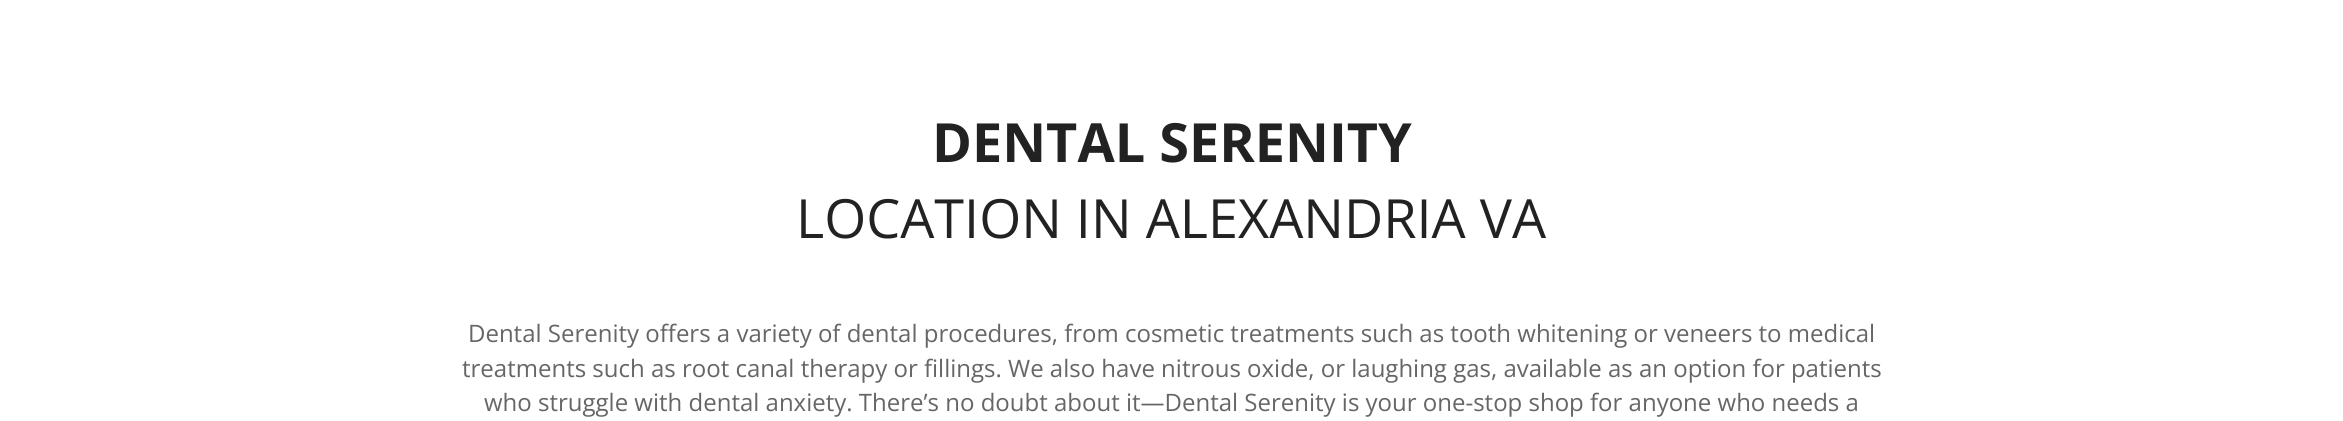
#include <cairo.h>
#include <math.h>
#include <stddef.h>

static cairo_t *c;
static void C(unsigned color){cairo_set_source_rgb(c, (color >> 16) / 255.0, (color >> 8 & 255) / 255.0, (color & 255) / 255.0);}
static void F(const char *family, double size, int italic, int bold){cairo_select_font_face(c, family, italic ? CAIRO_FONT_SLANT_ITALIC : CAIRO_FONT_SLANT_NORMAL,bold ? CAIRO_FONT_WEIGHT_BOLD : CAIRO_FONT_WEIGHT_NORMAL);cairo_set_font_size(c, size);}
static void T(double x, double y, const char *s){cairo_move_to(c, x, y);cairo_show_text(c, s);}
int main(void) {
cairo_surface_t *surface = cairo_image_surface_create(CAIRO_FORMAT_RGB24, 2343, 421);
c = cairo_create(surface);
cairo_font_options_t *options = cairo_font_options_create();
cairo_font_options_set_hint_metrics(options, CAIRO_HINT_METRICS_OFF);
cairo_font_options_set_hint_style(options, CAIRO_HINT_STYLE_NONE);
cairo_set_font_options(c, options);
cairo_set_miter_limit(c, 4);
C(0xffffff);
cairo_paint(c);
F("Open Sans",54,0,1);
C(0x222222);
T(932,162,"DENTAL SERENITY");
F("Open Sans",54,0,0);
T(796,238,"LOCATION IN ALEXANDRIA VA");
F("Open Sans",24,0,0);
C(0x666666);
T(468,342,"Dental Serenity offers a variety of dental procedures, from cosmetic treatments such as tooth whitening or veneers to medical");
T(462,377,"treatments such as root canal therapy or fillings. We also have nitrous oxide, or laughing gas, available as an option for patients");
T(484,411,"who struggle with dental anxiety. There’s no doubt about it—Dental Serenity is your one-stop shop for anyone who needs a");
cairo_surface_write_to_png(surface, "o.png");
cairo_font_options_destroy(options);
cairo_destroy(c);
cairo_surface_destroy(surface);
return 0;
}
